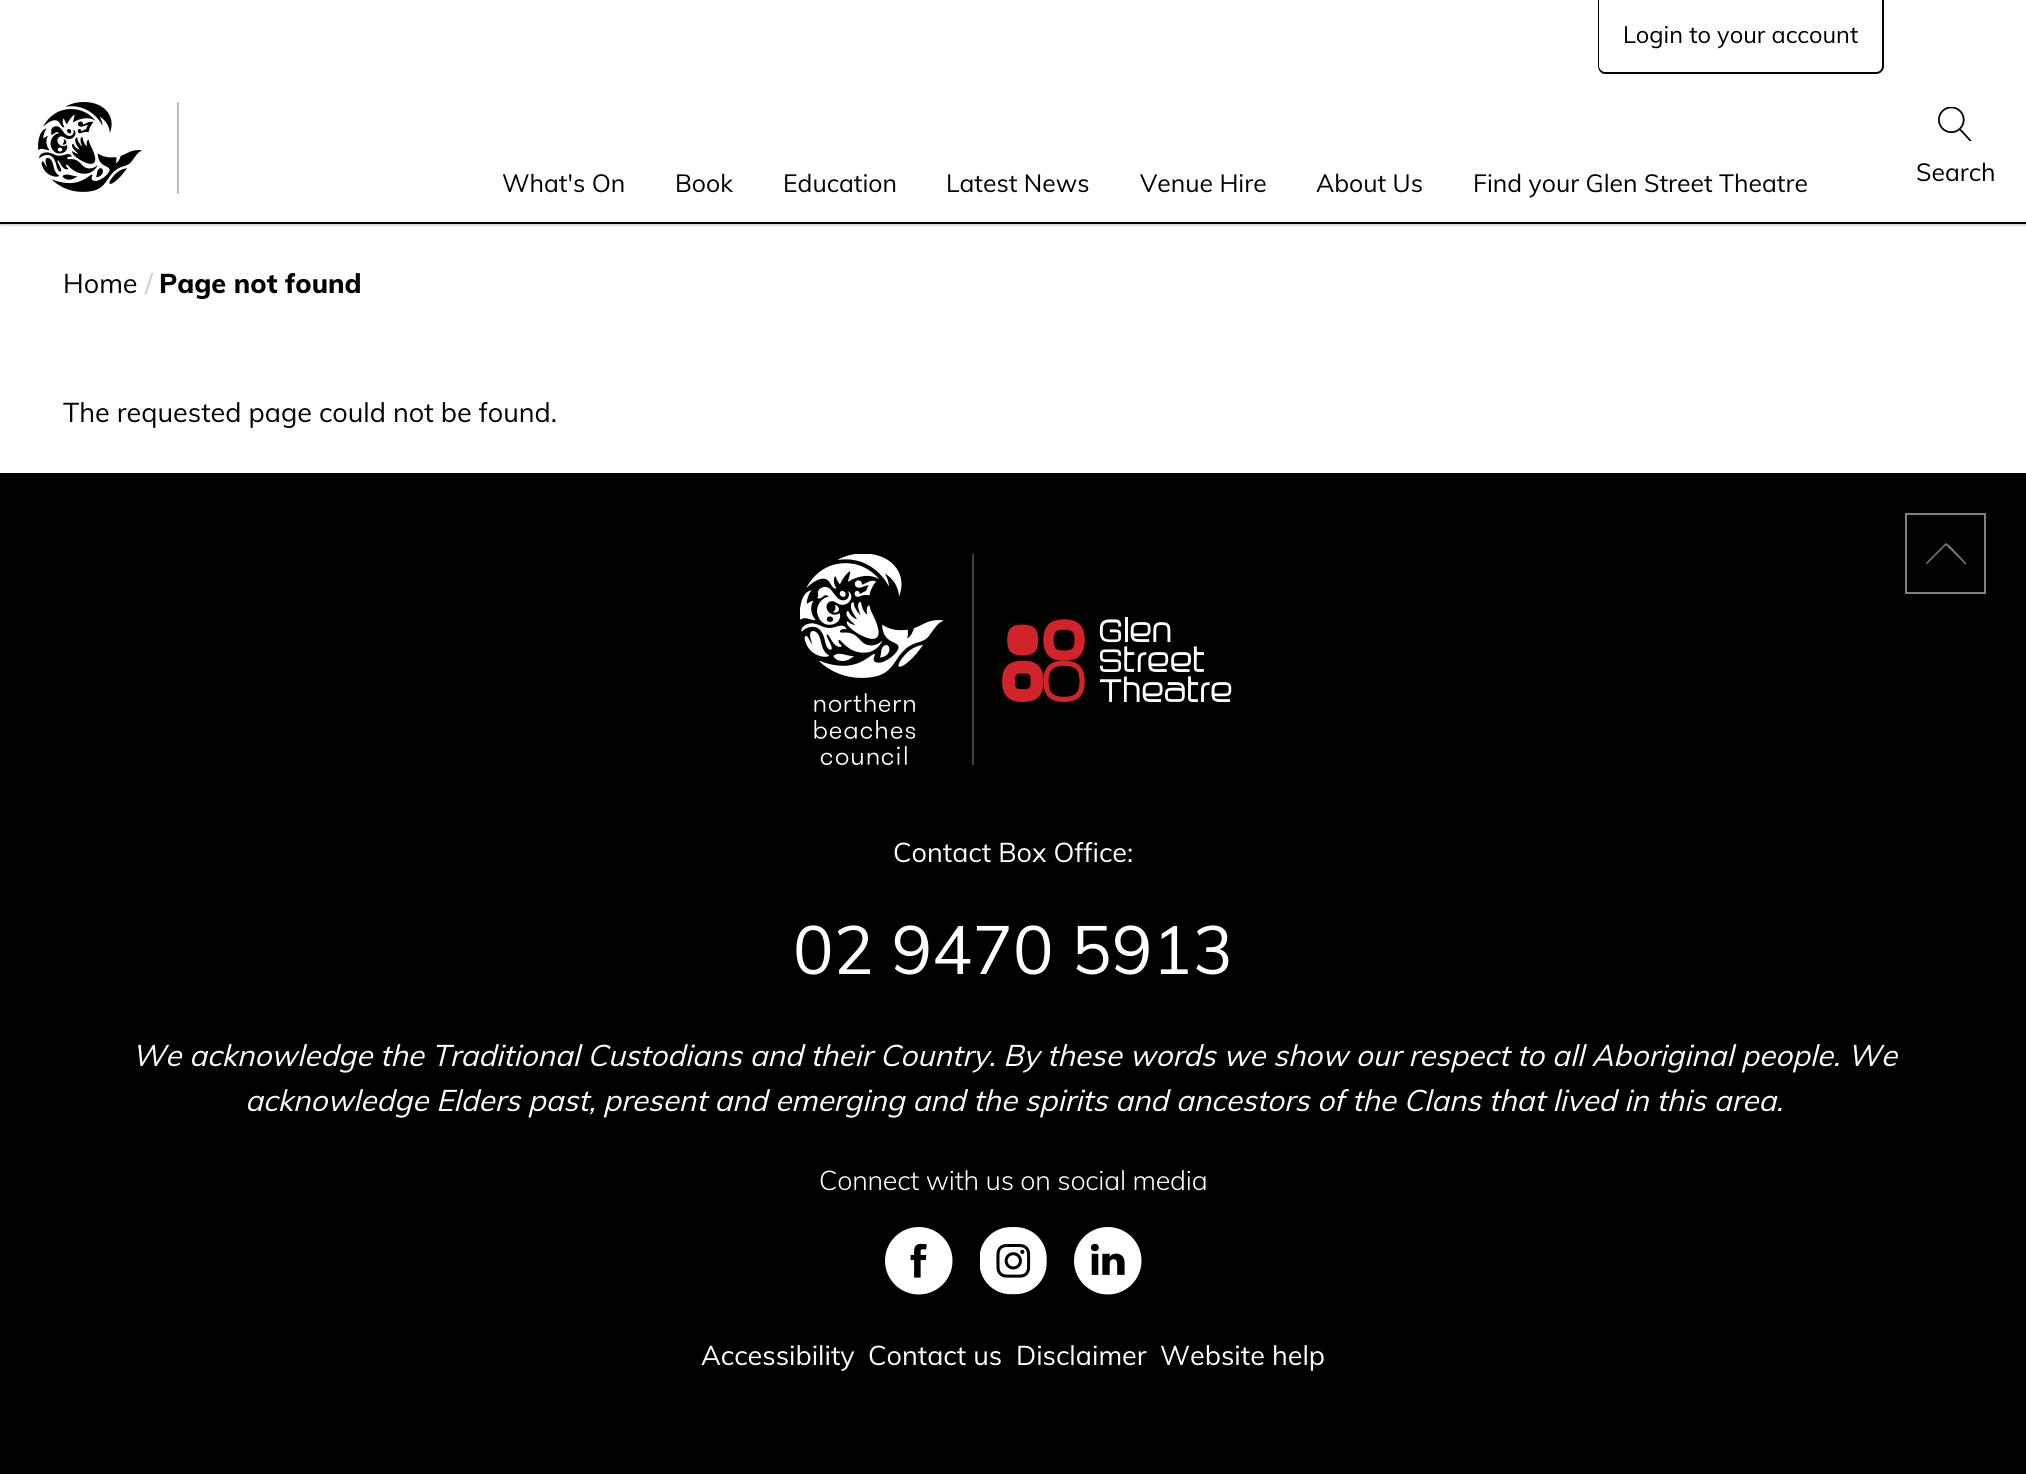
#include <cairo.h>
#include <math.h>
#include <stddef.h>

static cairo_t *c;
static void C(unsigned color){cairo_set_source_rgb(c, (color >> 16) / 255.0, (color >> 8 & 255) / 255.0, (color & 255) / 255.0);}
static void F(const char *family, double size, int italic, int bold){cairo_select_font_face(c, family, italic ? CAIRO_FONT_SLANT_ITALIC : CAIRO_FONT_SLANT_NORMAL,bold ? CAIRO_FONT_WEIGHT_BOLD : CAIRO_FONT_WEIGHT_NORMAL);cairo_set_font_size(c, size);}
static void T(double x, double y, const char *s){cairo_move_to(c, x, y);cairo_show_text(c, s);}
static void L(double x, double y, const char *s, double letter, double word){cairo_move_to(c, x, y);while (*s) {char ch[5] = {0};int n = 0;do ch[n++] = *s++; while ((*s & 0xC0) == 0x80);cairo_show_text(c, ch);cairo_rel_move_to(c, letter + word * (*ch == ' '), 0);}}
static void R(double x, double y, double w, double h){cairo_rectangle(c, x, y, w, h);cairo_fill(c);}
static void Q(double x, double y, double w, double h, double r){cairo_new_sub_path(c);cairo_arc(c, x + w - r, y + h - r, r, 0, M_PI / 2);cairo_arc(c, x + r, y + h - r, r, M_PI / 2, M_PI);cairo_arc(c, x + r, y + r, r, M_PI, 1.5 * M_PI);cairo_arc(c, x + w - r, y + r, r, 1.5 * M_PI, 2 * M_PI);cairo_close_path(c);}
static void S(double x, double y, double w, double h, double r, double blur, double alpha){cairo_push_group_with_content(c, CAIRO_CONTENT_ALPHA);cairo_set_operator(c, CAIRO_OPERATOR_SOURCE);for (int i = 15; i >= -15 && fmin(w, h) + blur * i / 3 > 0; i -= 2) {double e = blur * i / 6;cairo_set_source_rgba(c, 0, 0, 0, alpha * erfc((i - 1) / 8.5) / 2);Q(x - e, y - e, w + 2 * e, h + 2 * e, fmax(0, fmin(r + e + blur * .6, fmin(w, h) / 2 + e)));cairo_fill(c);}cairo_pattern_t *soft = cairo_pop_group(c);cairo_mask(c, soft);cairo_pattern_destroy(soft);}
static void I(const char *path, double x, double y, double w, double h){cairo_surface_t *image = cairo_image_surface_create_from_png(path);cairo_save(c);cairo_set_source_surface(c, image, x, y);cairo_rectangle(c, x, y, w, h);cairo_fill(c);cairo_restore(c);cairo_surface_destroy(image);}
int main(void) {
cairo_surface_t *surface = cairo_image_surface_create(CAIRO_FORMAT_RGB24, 2026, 1474);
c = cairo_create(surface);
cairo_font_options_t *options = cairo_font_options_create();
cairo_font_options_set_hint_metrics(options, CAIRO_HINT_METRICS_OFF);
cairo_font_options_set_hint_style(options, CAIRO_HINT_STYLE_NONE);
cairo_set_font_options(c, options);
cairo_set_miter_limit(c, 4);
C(0xffffff);
cairo_paint(c);
C(0x000000);
S(0,2,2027,223,0,1.5,.25);
C(0xffffff);
R(0,0,2026,222);
C(0x000000);
cairo_set_fill_rule(c,CAIRO_FILL_RULE_EVEN_ODD);
cairo_new_path(c);
cairo_move_to(c,1598,0);
cairo_line_to(c,1884,0);
cairo_line_to(c,1884,66);
cairo_curve_to(c,1884,70,1881,74,1876,74);
cairo_line_to(c,1605,74);
cairo_curve_to(c,1601,74,1598,70,1598,66);
cairo_close_path(c);
cairo_move_to(c,1599,0);
cairo_line_to(c,1882,0);
cairo_line_to(c,1882,66);
cairo_curve_to(c,1882,69,1880,72,1876,72);
cairo_line_to(c,1605,72);
cairo_curve_to(c,1602,72,1599,69,1599,66);
cairo_close_path(c);
cairo_fill(c);
F("Muli",23.6,0,0);
T(1623,43,"Login to your account");
R(0,222,2026,2);
C(0xbfbfbf);
R(177,102,2,92);
I("1.png",38,102,104,90);
F("Muli",24.75,0,0);
C(0x000000);
T(502,192,"What's On");
T(675,192,"Book");
T(783,192,"Education");
T(946,192,"Latest News");
T(1140,192,"Venue Hire");
T(1316,192,"About Us");
T(1473,192,"Find your Glen Street Theatre");
I("2.png",1938,107,34,34);
T(1916,181,"Search");
F("Muli",27,0,0);
T(63,293,"Home");
C(0xcccccc);
T(145,293,"/");
F("Muli ExtraBold",27,0,0);
C(0x000000);
T(159,293,"Page not found");
F("Muli",27,0,0);
T(63,422,"The requested page could not be found.");
R(0,473,2026,1001);
cairo_rectangle(c,1906,514,79,79);
C(0x808080);
cairo_stroke(c);
cairo_set_fill_rule(c,CAIRO_FILL_RULE_WINDING);
cairo_new_path(c);
cairo_move_to(c,1946,543);
cairo_line_to(c,1926,563);
cairo_curve_to(c,1926,564,1927,564,1927,564);
cairo_line_to(c,1946,545);
cairo_line_to(c,1965,564);
cairo_curve_to(c,1966,564,1967,564,1966,563);
cairo_line_to(c,1950,546);
cairo_close_path(c);
cairo_fill(c);
C(0x404040);
R(972,554,2,211);
I("3.png",800,554,144,211);
I("4.png",1002,617,230,85);
C(0xffffff);
T(893,862,"Contact Box Office:");
F("Muli",67.5,0,0);
T(793,974,"02 9470 5913");
F("Muli",29.7,1,0);
T(132,1066,"We acknowledge the Traditional Custodians and their Country. By these words we show our respect to all Aboriginal people. We");
T(245,1111,"acknowledge Elders past, present and emerging and the spirits and ancestors of the Clans that lived in this area.");
F("Muli Light",27,0,0);
L(819,1190,"Connect with us on social media",-.25,0);
I("5.png",885,1227,68,68);
I("6.png",980,1227,67,68);
I("7.png",1074,1227,68,68);
F("Muli",27,0,0);
T(701,1365,"Accessibility");
T(868,1365,"Contact us");
T(1016,1365,"Disclaimer");
T(1160,1365,"Website help");
cairo_surface_write_to_png(surface, "o.png");
cairo_font_options_destroy(options);
cairo_destroy(c);
cairo_surface_destroy(surface);
return 0;
}
